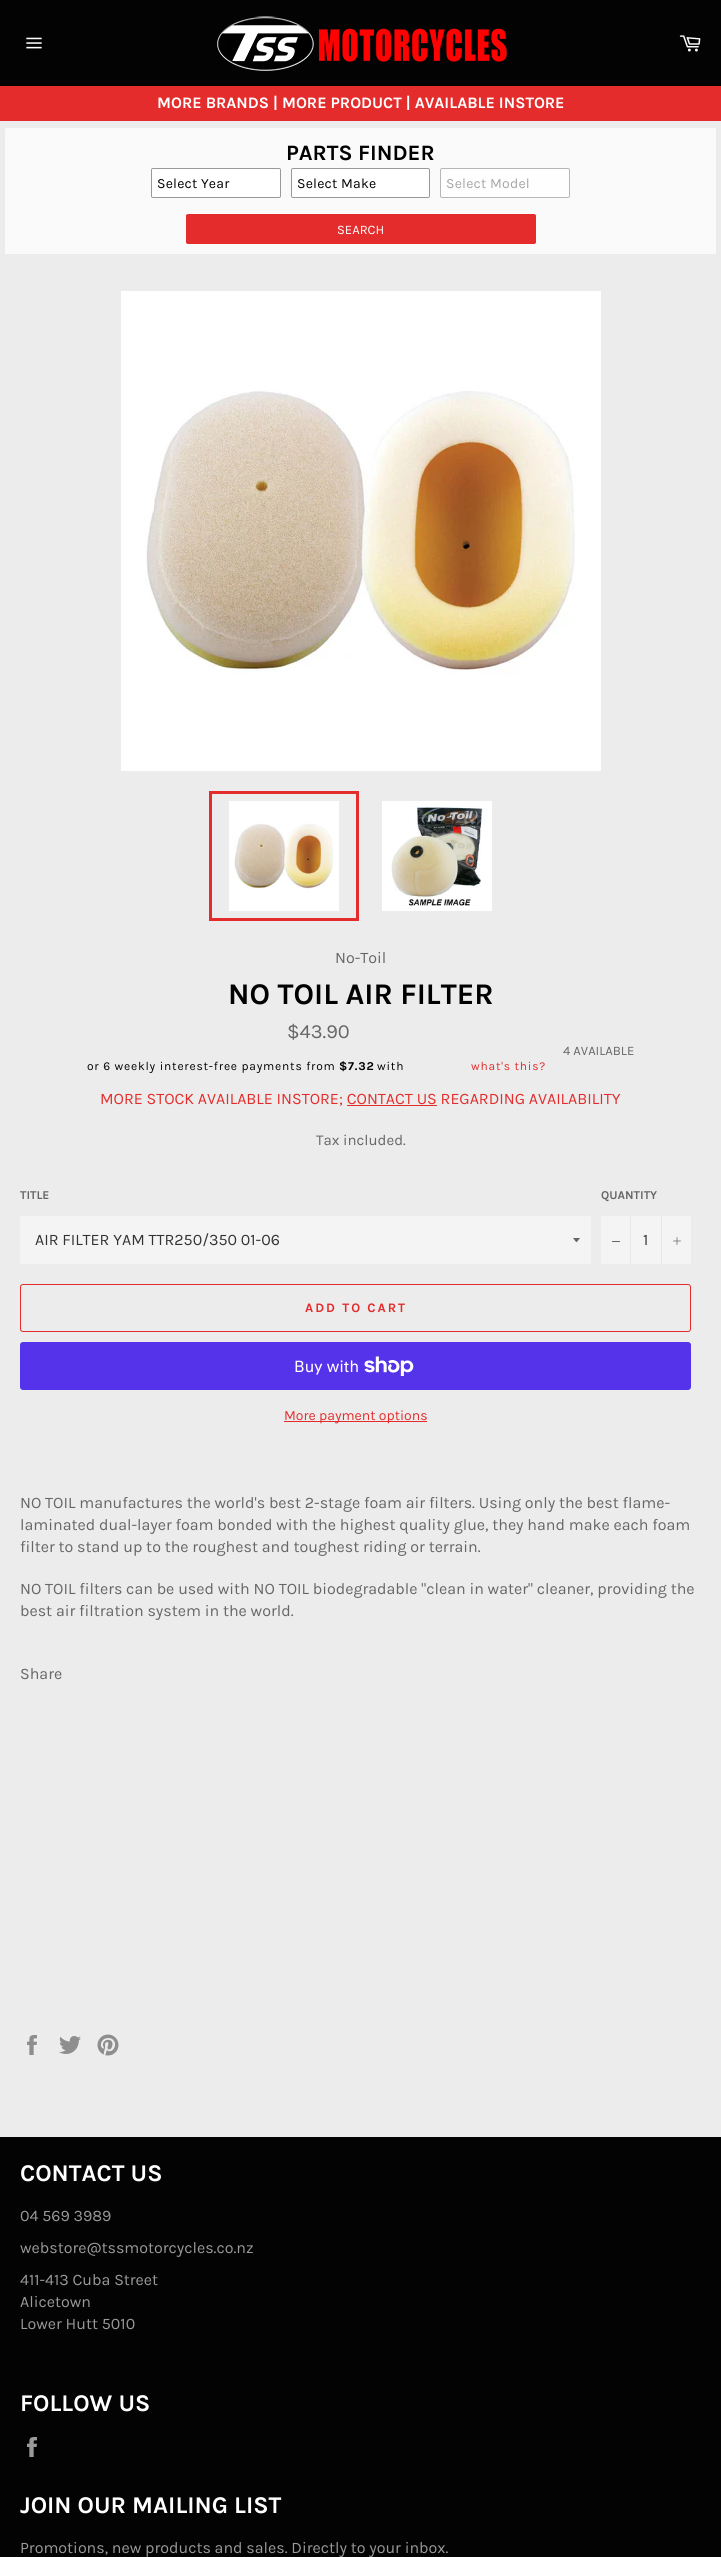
#include <cairo.h>
#include <math.h>
#include <stddef.h>

static cairo_t *c;
static void C(unsigned color){cairo_set_source_rgb(c, (color >> 16) / 255.0, (color >> 8 & 255) / 255.0, (color & 255) / 255.0);}
static void F(const char *family, double size, int italic, int bold){cairo_select_font_face(c, family, italic ? CAIRO_FONT_SLANT_ITALIC : CAIRO_FONT_SLANT_NORMAL,bold ? CAIRO_FONT_WEIGHT_BOLD : CAIRO_FONT_WEIGHT_NORMAL);cairo_set_font_size(c, size);}
static void T(double x, double y, const char *s){cairo_move_to(c, x, y);cairo_show_text(c, s);}
static void L(double x, double y, const char *s, double letter, double word){cairo_move_to(c, x, y);while (*s) {char ch[5] = {0};int n = 0;do ch[n++] = *s++; while ((*s & 0xC0) == 0x80);cairo_show_text(c, ch);cairo_rel_move_to(c, letter + word * (*ch == ' '), 0);}}
static void R(double x, double y, double w, double h){cairo_rectangle(c, x, y, w, h);cairo_fill(c);}
static void Q(double x, double y, double w, double h, double r){cairo_new_sub_path(c);cairo_arc(c, x + w - r, y + h - r, r, 0, M_PI / 2);cairo_arc(c, x + r, y + h - r, r, M_PI / 2, M_PI);cairo_arc(c, x + r, y + r, r, M_PI, 1.5 * M_PI);cairo_arc(c, x + w - r, y + r, r, 1.5 * M_PI, 2 * M_PI);cairo_close_path(c);}
static void I(const char *path, double x, double y, double w, double h){cairo_surface_t *image = cairo_image_surface_create_from_png(path);cairo_save(c);cairo_set_source_surface(c, image, x, y);cairo_rectangle(c, x, y, w, h);cairo_fill(c);cairo_restore(c);cairo_surface_destroy(image);}
int main(void) {
cairo_surface_t *surface = cairo_image_surface_create(CAIRO_FORMAT_RGB24, 721, 2557);
c = cairo_create(surface);
cairo_font_options_t *options = cairo_font_options_create();
cairo_font_options_set_hint_metrics(options, CAIRO_HINT_METRICS_OFF);
cairo_font_options_set_hint_style(options, CAIRO_HINT_STYLE_NONE);
cairo_set_font_options(c, options);
cairo_set_miter_limit(c, 4);
C(0xececec);
cairo_paint(c);
C(0x030303);
R(0,0,721,86);
I("1.png",26,37,16,12);
I("2.png",217,16,290,55);
I("3.png",679,35,22,17);
C(0xe32c2b);
R(0,86,721,35);
F("Karla",16,0,1);
C(0xffffff);
T(157,108,"MORE BRANDS | MORE PRODUCT | AVAILABLE INSTORE");
C(0xfafafa);
Q(4.5,127.5,712,127,1.5);
cairo_fill_preserve(c);
C(0xebebeb);
cairo_set_line_width(c,1);
cairo_stroke(c);
F("Karla",22,0,1);
C(0x000000);
T(286,160,"PARTS FINDER");
C(0xffffff);
Q(151.5,168.5,129,29,1.5);
cairo_fill_preserve(c);
C(0x999999);
cairo_stroke(c);
F("Karla",14,0,0);
C(0x000000);
L(157,188,"Select Year",.2,0);
C(0xffffff);
Q(291.5,168.5,138,29,1.5);
cairo_fill_preserve(c);
C(0x999999);
cairo_stroke(c);
C(0x000000);
L(297,188,"Select Make",.2,0);
C(0xfefefe);
Q(440.5,168.5,129,29,1.5);
cairo_fill_preserve(c);
C(0xb6b6b6);
cairo_stroke(c);
C(0xa5a5a5);
L(446,188,"Select Model",.2,0);
C(0xe32c2b);
Q(186.5,214.5,349,29,1.5);
cairo_fill_preserve(c);
cairo_stroke(c);
F("Karla",13,0,0);
C(0xffffff);
T(337,234,"SEARCH");
I("4.png",121,291,480,480);
I("5.png",229,801,110,110);
cairo_rectangle(c,210.5,792.5,147,127);
C(0xe32c2b);
cairo_set_line_width(c,3);
cairo_stroke(c);
I("6.png",382,801,110,110);
F("Karla",16,0,0);
C(0x666666);
T(335,963,"No-Toil");
F("Karla",30,0,1);
C(0x000000);
T(228,1004,"NO TOIL AIR FILTER");
F("Karla",20,0,0);
C(0x666666);
T(287,1038,"$43.90");
F("Karla",12,0,0);
C(0x000000);
L(87,1070,"or 6 weekly interest-free payments from",.8,0);
F("Karla",12,0,1);
L(339,1070,"$7.32",.8,0);
F("Karla",12,0,0);
L(377,1070,"with",.8,0);
C(0xe32c2b);
L(471,1070,"what's this?",.8,0);
F("Karla",13,0,0);
C(0x666666);
T(563,1055,"4 AVAILABLE");
F("Karla",16,0,0);
C(0xe32c2b);
T(100,1104,"MORE STOCK AVAILABLE INSTORE; CONTACT US REGARDING AVAILABILITY");
R(347,1105,90,1);
F("Karla",15,0,0);
C(0x666666);
T(316,1145,"Tax included.");
F("Karla",12,0,1);
T(20,1199,"TITLE");
C(0xf4f4f4);
R(20,1216,571,48);
C(0x666666);
cairo_new_path(c);
cairo_move_to(c,573,1238);
cairo_curve_to(c,577.5,1243.5,575.5,1243.5,580,1238);
cairo_close_path(c);
cairo_fill(c);
F("Karla",16,0,0);
C(0x333333);
T(35,1245,"AIR FILTER YAM TTR250/350 01-06");
F("Karla",12,0,1);
C(0x666666);
T(601,1199,"QUANTITY");
C(0xf4f4f4);
R(601,1216,90,48);
C(0xe7e7e7);
R(630,1216,1,48);
C(0x666666);
R(612,1241,8,1);
F("Karla",16,0,0);
C(0x333333);
T(643,1245,"1");
C(0xe7e7e7);
R(661,1216,1,48);
I("7.png",673,1237,8,8);
Q(20.5,1284.5,670,47,2.5);
C(0xe32c2b);
cairo_set_line_width(c,1);
cairo_stroke(c);
F("Karla",13,0,1);
L(305,1312,"ADD TO CART",2,0);
C(0x5433eb);
Q(20,1342,671,48,3);
cairo_fill(c);
F("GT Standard",16,0,0);
C(0xffffff);
T(294,1372,"Buy with");
I("8.png",364,1356,50,20);
C(0xe32c2b);
R(284,1421,143,1);
F("Karla",14,0,0);
T(284,1420,"More payment options");
F("Karla",16,0,0);
C(0x666666);
T(20,1508,"NO TOIL manufactures the world's best 2-stage foam air filters. Using only the best flame-");
T(20,1530,"laminated dual-layer foam bonded with the highest quality glue, they hand make each foam");
T(20,1552,"filter to stand up to the roughest and toughest riding or terrain.");
T(20,1594,"NO TOIL filters can be used with NO TOIL biodegradable \"clean in water\" cleaner, providing the");
T(20,1616,"best air filtration system in the world.");
T(20,1679,"Share");
I("9.png",27,2035,10,20);
I("10.png",59,2036,22,18);
I("11.png",97,2034,22,22);
C(0x030303);
R(0,2137,721,420);
F("Karla",24,0,1);
C(0xffffff);
T(20,2181,"CONTACT US");
F("Karla",16,0,0);
C(0x9a9a9a);
T(20,2221,"04 569 3989");
T(20,2253,"webstore@tssmotorcycles.co.nz");
T(20,2285,"411-413 Cuba Street");
T(20,2307,"Alicetown");
T(20,2329,"Lower Hutt 5010");
F("Karla",24,0,1);
C(0xffffff);
T(20,2411,"FOLLOW US");
I("12.png",27,2437,10,20);
T(20,2513,"JOIN OUR MAILING LIST");
F("Karla",16,0,0);
C(0x9a9a9a);
T(20,2553,"Promotions, new products and sales. Directly to your inbox.");
cairo_surface_write_to_png(surface, "o.png");
cairo_font_options_destroy(options);
cairo_destroy(c);
cairo_surface_destroy(surface);
return 0;
}
